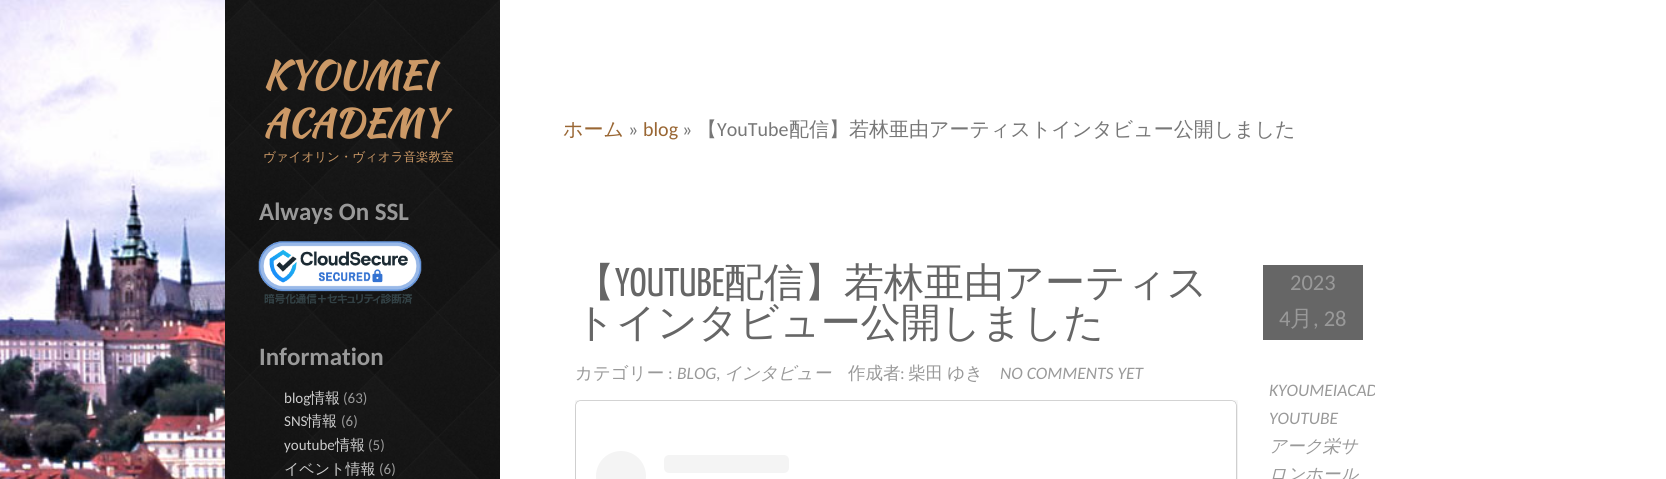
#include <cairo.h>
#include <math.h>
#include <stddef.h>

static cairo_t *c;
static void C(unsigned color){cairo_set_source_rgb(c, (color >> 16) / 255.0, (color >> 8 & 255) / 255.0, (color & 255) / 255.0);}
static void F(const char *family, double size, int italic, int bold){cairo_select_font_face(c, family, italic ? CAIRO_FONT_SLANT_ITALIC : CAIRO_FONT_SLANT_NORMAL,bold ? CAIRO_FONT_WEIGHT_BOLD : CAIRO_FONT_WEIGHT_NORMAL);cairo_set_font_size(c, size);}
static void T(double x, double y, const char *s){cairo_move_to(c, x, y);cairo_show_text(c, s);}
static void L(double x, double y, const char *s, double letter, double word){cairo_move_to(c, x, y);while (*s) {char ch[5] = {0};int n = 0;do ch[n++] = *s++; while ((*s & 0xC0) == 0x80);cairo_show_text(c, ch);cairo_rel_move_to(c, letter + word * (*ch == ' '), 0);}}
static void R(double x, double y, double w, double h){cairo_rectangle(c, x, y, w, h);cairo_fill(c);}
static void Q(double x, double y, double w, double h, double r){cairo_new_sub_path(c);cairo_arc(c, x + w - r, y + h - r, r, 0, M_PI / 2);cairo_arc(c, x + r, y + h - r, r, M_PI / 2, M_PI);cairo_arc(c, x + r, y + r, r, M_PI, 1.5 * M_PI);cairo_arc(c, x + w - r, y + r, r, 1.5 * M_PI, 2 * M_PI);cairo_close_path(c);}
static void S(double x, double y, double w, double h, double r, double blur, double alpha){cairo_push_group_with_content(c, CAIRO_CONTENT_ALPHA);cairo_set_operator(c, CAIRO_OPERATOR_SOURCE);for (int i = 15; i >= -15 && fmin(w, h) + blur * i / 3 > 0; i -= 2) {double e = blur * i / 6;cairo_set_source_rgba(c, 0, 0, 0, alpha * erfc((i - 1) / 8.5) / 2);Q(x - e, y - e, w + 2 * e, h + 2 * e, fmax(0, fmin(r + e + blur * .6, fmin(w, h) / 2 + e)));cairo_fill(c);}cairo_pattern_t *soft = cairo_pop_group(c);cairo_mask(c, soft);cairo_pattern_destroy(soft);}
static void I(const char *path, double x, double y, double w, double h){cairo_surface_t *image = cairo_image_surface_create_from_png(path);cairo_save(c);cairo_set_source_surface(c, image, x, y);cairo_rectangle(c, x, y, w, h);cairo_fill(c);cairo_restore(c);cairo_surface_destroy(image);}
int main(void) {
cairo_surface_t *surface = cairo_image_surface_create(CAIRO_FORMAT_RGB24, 1666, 479);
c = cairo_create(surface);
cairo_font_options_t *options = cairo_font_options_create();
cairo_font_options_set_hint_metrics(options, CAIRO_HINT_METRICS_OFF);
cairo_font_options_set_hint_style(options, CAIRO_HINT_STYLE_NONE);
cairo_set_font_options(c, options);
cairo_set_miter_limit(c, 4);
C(0xffffff);
cairo_paint(c);
I("1.png",0,0,225,479);
I("2.png",225,0,275,479);
F("Kaushan Script",37.5,0,1);
C(0xcc9966);
T(263,88,"KYOUMEI");
T(263,136,"ACADEMY");
F("WenQuanYi Zen Hei Medium",12.5,0,0);
T(263,161,"ヴァイオリン・ヴィオラ音楽教室");
F("Carlito",25,0,1);
C(0x999999);
T(259,220,"Always On SSL");
I("3.png",258,241,164,63);
T(259,365,"Information");
F("Carlito",15,0,0);
C(0xcccccc);
T(284,403,"blog");
F("WenQuanYi Zen Hei Medium",15,0,0);
T(310,403,"情報");
F("Carlito",15,0,0);
C(0x999999);
T(343,403,"(63)");
C(0xcccccc);
T(284,426,"SNS");
F("WenQuanYi Zen Hei Medium",15,0,0);
T(307,426,"情報");
F("Carlito",15,0,0);
C(0x999999);
T(341,426,"(6)");
C(0xcccccc);
T(284,450,"youtube");
F("WenQuanYi Zen Hei Medium",15,0,0);
T(335,450,"情報");
F("Carlito",15,0,0);
C(0x999999);
T(368,450,"(5)");
F("WenQuanYi Zen Hei Medium",15,0,0);
C(0xcccccc);
T(284,474,"イベント情報");
F("Carlito",15,0,0);
C(0x999999);
T(379,474,"(6)");
F("WenQuanYi Zen Hei Medium",20,0,0);
C(0x996633);
T(563,136,"ホーム");
F("Carlito",20,0,0);
C(0x777777);
T(628,136,"»");
C(0x996633);
T(643,136,"blog");
C(0x777777);
T(682,136,"»");
F("WenQuanYi Zen Hei Medium",20,0,0);
T(697,136,"【");
F("Carlito",20,0,0);
T(717,136,"YouTube");
F("WenQuanYi Zen Hei Medium",20,0,0);
T(789,136,"配信】若林亜由アーティストインタビュー公開しました");
F("WenQuanYi Zen Hei Medium",40,0,0);
C(0x666666);
T(575,296,"【");
F("Yanone Kaffeesatz ExtraLight",40,0,0);
T(615,296,"YOUTUBE");
F("WenQuanYi Zen Hei Medium",40,0,0);
T(724,296,"配信】若林亜由アーティス");
T(575,336,"トインタビュー公開しました");
F("WenQuanYi Zen Hei Medium",17.5,0,0);
C(0x999999);
T(575,379,"カテゴリー");
F("Carlito",17.5,0,0);
T(668,379,":");
F("Carlito",17.5,1,0);
T(677,379,"BLOG");
F("Carlito",17.5,0,0);
T(716,379,",");
F("WenQuanYi Zen Hei Medium",17.5,1,0);
T(724,379,"インタビュー");
F("WenQuanYi Zen Hei Medium",17.5,0,0);
T(848,379,"作成者");
F("Carlito",17.5,0,0);
T(900,379,":");
F("WenQuanYi Zen Hei Medium",17.5,0,0);
L(908,379,"柴田 ゆき",0,-1);
F("Carlito",17.5,1,0);
T(1000,379,"NO COMMENTS YET");
cairo_save(c);
cairo_rectangle(c,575,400,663,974);
cairo_clip(c);
C(0x000000);
S(576,403,660,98,4,6,.15);
cairo_restore(c);
C(0x000000);
S(576,401,660,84,4,.5,.5);
C(0xffffff);
Q(576,401,660,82,4);
cairo_fill(c);
C(0xf4f4f4);
cairo_arc(c,621,476,25,0,2 * M_PI);
cairo_fill(c);
Q(664,455,125,18,5);
cairo_fill(c);
C(0x666666);
R(1263,265,100,75);
F("Carlito",22.5,0,0);
C(0x999999);
T(1290,290,"2023");
T(1279,326,"4");
F("WenQuanYi Zen Hei Medium",22.5,0,0);
T(1290,326,"月");
F("Carlito",22.5,0,0);
T(1313,326,", 28");
cairo_save(c);
cairo_rectangle(c,563,203,812,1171);
cairo_clip(c);
F("Carlito",17.5,1,0);
T(1269,396,"KYOUMEIACAD");
cairo_restore(c);
F("Carlito",17.5,1,0);
T(1269,424,"YOUTUBE");
F("WenQuanYi Zen Hei Medium",17.5,1,0);
T(1269,452,"アーク栄サ");
T(1269,480,"ロンホール");
cairo_surface_write_to_png(surface, "o.png");
cairo_font_options_destroy(options);
cairo_destroy(c);
cairo_surface_destroy(surface);
return 0;
}
